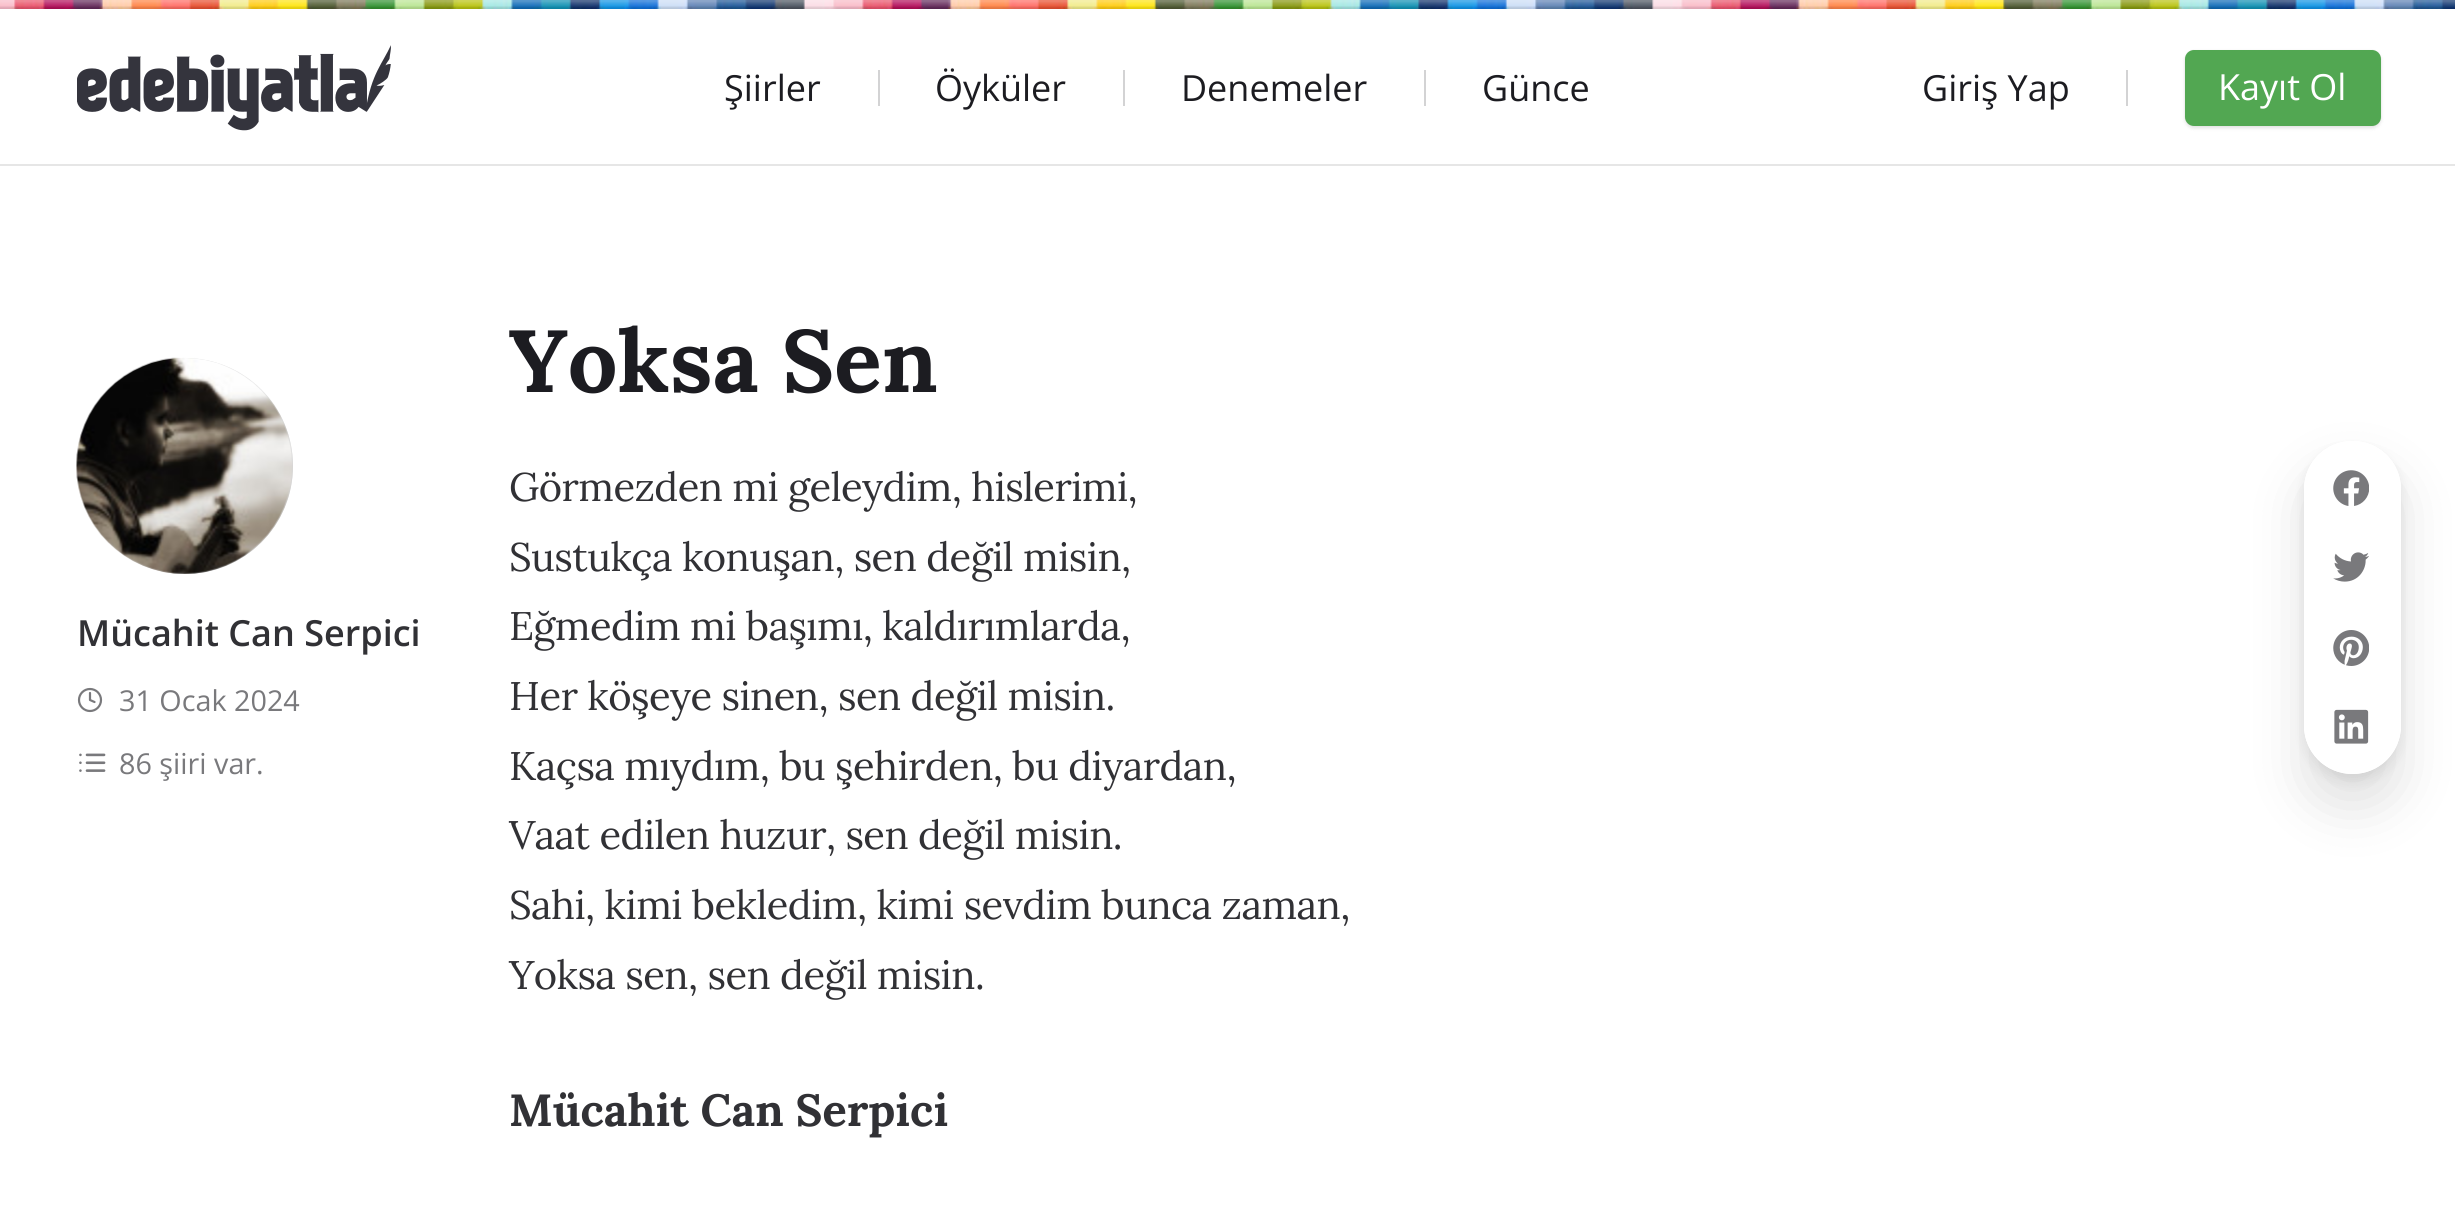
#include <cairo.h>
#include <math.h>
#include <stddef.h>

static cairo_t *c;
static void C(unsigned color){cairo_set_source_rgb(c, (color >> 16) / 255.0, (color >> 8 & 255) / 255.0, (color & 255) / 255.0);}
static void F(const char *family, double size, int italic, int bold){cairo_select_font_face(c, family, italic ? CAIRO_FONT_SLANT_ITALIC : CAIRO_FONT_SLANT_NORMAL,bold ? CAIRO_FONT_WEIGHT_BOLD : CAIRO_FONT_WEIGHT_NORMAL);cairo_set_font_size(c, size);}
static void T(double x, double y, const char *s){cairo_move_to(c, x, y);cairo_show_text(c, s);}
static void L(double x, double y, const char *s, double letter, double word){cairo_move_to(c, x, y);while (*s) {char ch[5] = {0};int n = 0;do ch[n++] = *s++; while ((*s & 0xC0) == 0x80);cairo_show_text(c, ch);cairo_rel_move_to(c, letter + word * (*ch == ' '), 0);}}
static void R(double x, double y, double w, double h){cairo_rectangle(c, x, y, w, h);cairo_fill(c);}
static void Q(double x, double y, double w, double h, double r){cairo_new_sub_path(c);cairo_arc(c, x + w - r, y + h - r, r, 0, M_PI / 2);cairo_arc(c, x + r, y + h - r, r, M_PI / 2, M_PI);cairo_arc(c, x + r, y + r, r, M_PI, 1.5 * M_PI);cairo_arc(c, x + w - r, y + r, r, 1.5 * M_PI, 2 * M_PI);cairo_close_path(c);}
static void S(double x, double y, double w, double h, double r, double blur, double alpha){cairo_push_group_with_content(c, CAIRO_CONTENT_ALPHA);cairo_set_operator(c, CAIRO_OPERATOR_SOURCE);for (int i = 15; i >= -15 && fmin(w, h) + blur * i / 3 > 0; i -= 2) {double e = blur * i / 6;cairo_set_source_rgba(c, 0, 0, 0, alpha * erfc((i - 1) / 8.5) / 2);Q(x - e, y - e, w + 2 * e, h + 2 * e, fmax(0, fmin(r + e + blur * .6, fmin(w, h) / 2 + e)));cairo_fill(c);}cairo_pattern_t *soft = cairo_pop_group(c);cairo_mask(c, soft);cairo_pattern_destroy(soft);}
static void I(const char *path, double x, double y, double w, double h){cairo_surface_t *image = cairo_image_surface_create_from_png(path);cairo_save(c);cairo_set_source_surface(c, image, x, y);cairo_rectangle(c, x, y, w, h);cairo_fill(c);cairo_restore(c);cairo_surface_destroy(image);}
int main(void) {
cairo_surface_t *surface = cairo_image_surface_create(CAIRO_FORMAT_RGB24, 2455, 1215);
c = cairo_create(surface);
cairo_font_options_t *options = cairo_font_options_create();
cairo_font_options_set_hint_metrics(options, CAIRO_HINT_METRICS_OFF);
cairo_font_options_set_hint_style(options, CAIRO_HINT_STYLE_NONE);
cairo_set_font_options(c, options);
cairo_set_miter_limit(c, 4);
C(0xffffff);
cairo_paint(c);
I("1.png",0,0,2455,9);
C(0xe6e6e6);
R(0,164,2455,2);
I("2.png",77,45,314,86);
F("Open Sans",36,0,0);
C(0x1c1c21);
T(724,101,"Şiirler");
C(0xd3d3d4);
R(878,70,2,36);
C(0x1c1c21);
T(935,101,"Öyküler");
C(0xd3d3d4);
R(1123,70,2,36);
C(0x1c1c21);
T(1181,101,"Denemeler");
C(0xd3d3d4);
R(1424,70,2,36);
C(0x1c1c21);
T(1482,101,"Günce");
T(1922,101,"Giriş Yap");
C(0xd3d3d4);
R(2126,70,2,36);
C(0x000000);
S(2185,52,196,76,9,2,.12);
S(2185,50,196,76,9,.5,.06);
C(0x52a752);
Q(2185,50,196,76,9);
cairo_fill(c);
C(0xffffff);
T(2218,100,"Kayıt Ol");
F("Lora",88,0,1);
C(0x1c1c21);
T(509,392,"Yoksa Sen");
C(0xd3d3d4);
cairo_new_path(c);
cairo_arc(c,185,466,108,0,2 * M_PI);
cairo_fill(c);
I("3.png",76,357,217,217);
F("Open Sans SemiBold",36,0,0);
C(0x313135);
T(77,646,"Mücahit Can Serpici");
cairo_new_path(c);
cairo_arc(c,90,700,11,0,2 * M_PI);
C(0x79797c);
cairo_set_line_width(c,2.2);
cairo_stroke(c);
cairo_new_path(c);
cairo_move_to(c,90,693);
cairo_line_to(c,90,700);
cairo_line_to(c,94.5,702);
cairo_set_line_cap(c,CAIRO_LINE_CAP_ROUND);
cairo_set_line_join(c,CAIRO_LINE_JOIN_ROUND);
cairo_stroke(c);
F("Open Sans",28.75,0,0);
T(119,711,"31 Ocak 2024");
I("4.png",79,753,27,19);
T(119,774,"86 şiiri var.");
F("Lora",39.9,0,0);
C(0x313135);
L(509,501,"Görmezden mi geleydim, hislerimi,",-.55,0);
L(509,571,"Sustukça konuşan, sen değil misin,",-.55,0);
L(509,640,"Eğmedim mi başımı, kaldırımlarda,",-.55,0);
L(509,710,"Her köşeye sinen, sen değil misin.",-.55,0);
L(509,780,"Kaçsa mıydım, bu şehirden, bu diyardan,",-.55,0);
L(509,849,"Vaat edilen huzur, sen değil misin.",-.55,0);
L(509,919,"Sahi, kimi bekledim, kimi sevdim bunca zaman,",-.55,0);
L(509,989,"Yoksa sen, sen değil misin.",-.55,0);
F("Lora",45,0,1);
T(509,1126,"Mücahit Can Serpici");
cairo_save(c);
cairo_set_fill_rule(c,CAIRO_FILL_RULE_EVEN_ODD);
cairo_new_path(c);
cairo_move_to(c,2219,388);
cairo_line_to(c,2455,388);
cairo_line_to(c,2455,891);
cairo_line_to(c,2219,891);
cairo_close_path(c);
cairo_move_to(c,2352.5,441);
cairo_curve_to(c,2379.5,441,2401,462.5,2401,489.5);
cairo_line_to(c,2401,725.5);
cairo_curve_to(c,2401,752.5,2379.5,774,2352.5,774);
cairo_curve_to(c,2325.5,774,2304,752.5,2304,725.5);
cairo_line_to(c,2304,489.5);
cairo_curve_to(c,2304,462.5,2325.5,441,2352.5,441);
cairo_close_path(c);
cairo_clip(c);
C(0x000000);
S(2304,473,97,333,48.5,28,.12);
cairo_restore(c);
cairo_save(c);
cairo_set_fill_rule(c,CAIRO_FILL_RULE_EVEN_ODD);
cairo_new_path(c);
cairo_move_to(c,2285,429);
cairo_line_to(c,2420,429);
cairo_line_to(c,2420,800);
cairo_line_to(c,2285,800);
cairo_close_path(c);
cairo_move_to(c,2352.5,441);
cairo_curve_to(c,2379.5,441,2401,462.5,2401,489.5);
cairo_line_to(c,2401,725.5);
cairo_curve_to(c,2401,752.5,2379.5,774,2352.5,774);
cairo_curve_to(c,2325.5,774,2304,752.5,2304,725.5);
cairo_line_to(c,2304,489.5);
cairo_curve_to(c,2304,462.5,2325.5,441,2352.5,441);
cairo_close_path(c);
cairo_clip(c);
C(0x000000);
S(2304,448,97,333,48.5,6,.08);
cairo_restore(c);
cairo_set_source_rgba(c,1,1,1,0.95);
Q(2304,441,97,333,48.5);
cairo_fill(c);
I("5.png",2333,470,36,36);
I("6.png",2333,552,36,30);
I("7.png",2333,630,36,36);
I("8.png",2334,709,35,35);
cairo_surface_write_to_png(surface, "o.png");
cairo_font_options_destroy(options);
cairo_destroy(c);
cairo_surface_destroy(surface);
return 0;
}
